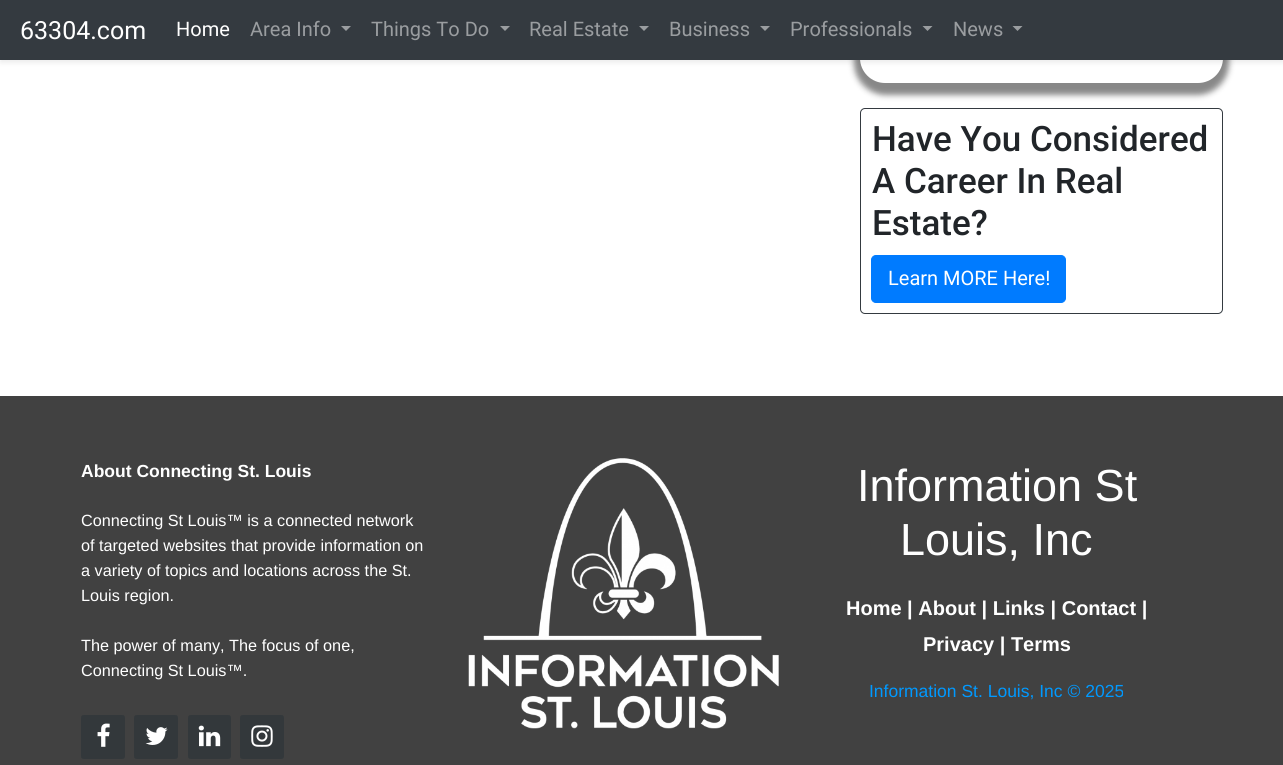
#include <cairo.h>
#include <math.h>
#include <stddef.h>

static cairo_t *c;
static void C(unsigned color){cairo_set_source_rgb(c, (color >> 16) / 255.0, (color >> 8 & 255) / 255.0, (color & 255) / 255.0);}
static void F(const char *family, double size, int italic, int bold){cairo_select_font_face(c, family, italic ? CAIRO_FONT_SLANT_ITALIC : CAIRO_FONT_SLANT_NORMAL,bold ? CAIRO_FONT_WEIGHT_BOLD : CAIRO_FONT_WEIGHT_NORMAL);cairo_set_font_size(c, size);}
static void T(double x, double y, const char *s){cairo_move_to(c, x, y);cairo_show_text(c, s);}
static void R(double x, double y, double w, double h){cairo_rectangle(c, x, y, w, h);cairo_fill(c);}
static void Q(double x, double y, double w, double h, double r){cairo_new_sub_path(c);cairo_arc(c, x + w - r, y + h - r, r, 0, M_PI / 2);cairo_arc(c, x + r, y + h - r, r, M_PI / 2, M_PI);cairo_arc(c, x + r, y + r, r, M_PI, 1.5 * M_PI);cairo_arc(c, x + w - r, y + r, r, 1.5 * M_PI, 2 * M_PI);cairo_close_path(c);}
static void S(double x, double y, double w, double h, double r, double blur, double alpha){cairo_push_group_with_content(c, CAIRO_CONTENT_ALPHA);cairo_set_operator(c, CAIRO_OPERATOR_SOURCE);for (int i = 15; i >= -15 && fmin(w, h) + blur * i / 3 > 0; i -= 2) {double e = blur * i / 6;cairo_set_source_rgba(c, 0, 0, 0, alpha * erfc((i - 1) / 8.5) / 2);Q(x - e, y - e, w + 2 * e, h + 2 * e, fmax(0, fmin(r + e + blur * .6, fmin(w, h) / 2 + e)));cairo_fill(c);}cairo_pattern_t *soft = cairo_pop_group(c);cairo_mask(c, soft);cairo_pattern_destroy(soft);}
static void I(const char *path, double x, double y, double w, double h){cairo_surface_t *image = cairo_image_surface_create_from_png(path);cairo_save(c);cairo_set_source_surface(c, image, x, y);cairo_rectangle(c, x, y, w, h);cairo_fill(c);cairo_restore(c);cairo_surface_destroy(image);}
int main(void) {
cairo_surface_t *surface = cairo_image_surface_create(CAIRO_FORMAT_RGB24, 1283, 765);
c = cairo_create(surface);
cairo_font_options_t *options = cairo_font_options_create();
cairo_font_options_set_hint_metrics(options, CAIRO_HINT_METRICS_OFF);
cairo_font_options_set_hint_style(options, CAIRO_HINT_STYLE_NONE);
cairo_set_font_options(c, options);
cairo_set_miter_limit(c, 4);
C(0xffffff);
cairo_paint(c);
C(0x888888);
S(854,-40,375,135,31,3,1);
C(0xffffff);
Q(860,-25,363,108,25);
cairo_fill(c);
C(0x000000);
S(0,3,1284,60,0,2.5,.07);
C(0x343a40);
R(0,0,1283,60);
F("Roboto",25,0,0);
C(0xffffff);
T(20,39,"63304.com");
F("Roboto",20,0,0);
T(176,36,"Home");
C(0x9a9da0);
T(250,36,"Area Info");
cairo_new_path(c);
cairo_move_to(c,341,26);
cairo_line_to(c,351,26);
cairo_line_to(c,346,31);
cairo_close_path(c);
cairo_fill(c);
T(371,36,"Things To Do");
cairo_new_path(c);
cairo_move_to(c,500,26);
cairo_line_to(c,510,26);
cairo_line_to(c,505,31);
cairo_close_path(c);
cairo_fill(c);
T(529,36,"Real Estate");
cairo_new_path(c);
cairo_move_to(c,639,26);
cairo_line_to(c,649,26);
cairo_line_to(c,644,31);
cairo_close_path(c);
cairo_fill(c);
T(669,36,"Business");
cairo_new_path(c);
cairo_move_to(c,760,26);
cairo_line_to(c,770,26);
cairo_line_to(c,765,31);
cairo_close_path(c);
cairo_fill(c);
T(790,36,"Professionals");
cairo_new_path(c);
cairo_move_to(c,922.5,26);
cairo_line_to(c,932.5,26);
cairo_line_to(c,927.5,31);
cairo_close_path(c);
cairo_fill(c);
T(953,36,"News");
cairo_new_path(c);
cairo_move_to(c,1012.5,26);
cairo_line_to(c,1022.5,26);
cairo_line_to(c,1017.5,31);
cairo_close_path(c);
cairo_fill(c);
Q(860.5,108.5,362,205,4.5);
C(0x343a40);
cairo_set_line_width(c,1);
cairo_stroke(c);
F("Roboto Medium",35,0,0);
C(0x212529);
T(872,151,"Have You Considered");
T(872,193,"A Career In Real");
T(872,235,"Estate?");
C(0x007bff);
Q(871.5,255.5,194,47,4.5);
cairo_fill_preserve(c);
cairo_stroke(c);
F("Roboto",20,0,0);
C(0xffffff);
T(888,285,"Learn MORE Here!");
C(0x414141);
R(0,396,1283,369);
F("Liberation Sans",17.5,0,1);
C(0xffffff);
T(81,477,"About Connecting St. Louis");
F("Liberation Sans",16.25,0,0);
T(81,526,"Connecting St Louis™ is a connected network");
T(81,551,"of targeted websites that provide information on");
T(81,576,"a variety of topics and locations across the St.");
T(81,601,"Louis region.");
T(81,651,"The power of many, The focus of one,");
T(81,676,"Connecting St Louis™.");
C(0x33383b);
Q(81,715,44,44,2.5);
cairo_fill(c);
I("1.png",97,723,13,24);
Q(134,715,44,44,2.5);
cairo_fill(c);
I("2.png",145,727,23,18);
Q(188,715,43,44,2.5);
cairo_fill(c);
I("3.png",198,725,23,22);
Q(240,715,44,44,2.5);
cairo_fill(c);
I("4.png",251,725,22,22);
I("5.png",468,458,311,271);
F("Liberation Sans",45,0,0);
C(0xffffff);
T(857,501,"Information St");
T(900,555,"Louis, Inc");
F("Liberation Sans",20,0,1);
T(846,615,"Home | About | Links | Contact |");
T(923,651,"Privacy | Terms");
F("Liberation Sans",17.5,0,0);
C(0x0099ff);
T(869,697,"Information St. Louis, Inc © 2025");
cairo_surface_write_to_png(surface, "o.png");
cairo_font_options_destroy(options);
cairo_destroy(c);
cairo_surface_destroy(surface);
return 0;
}
